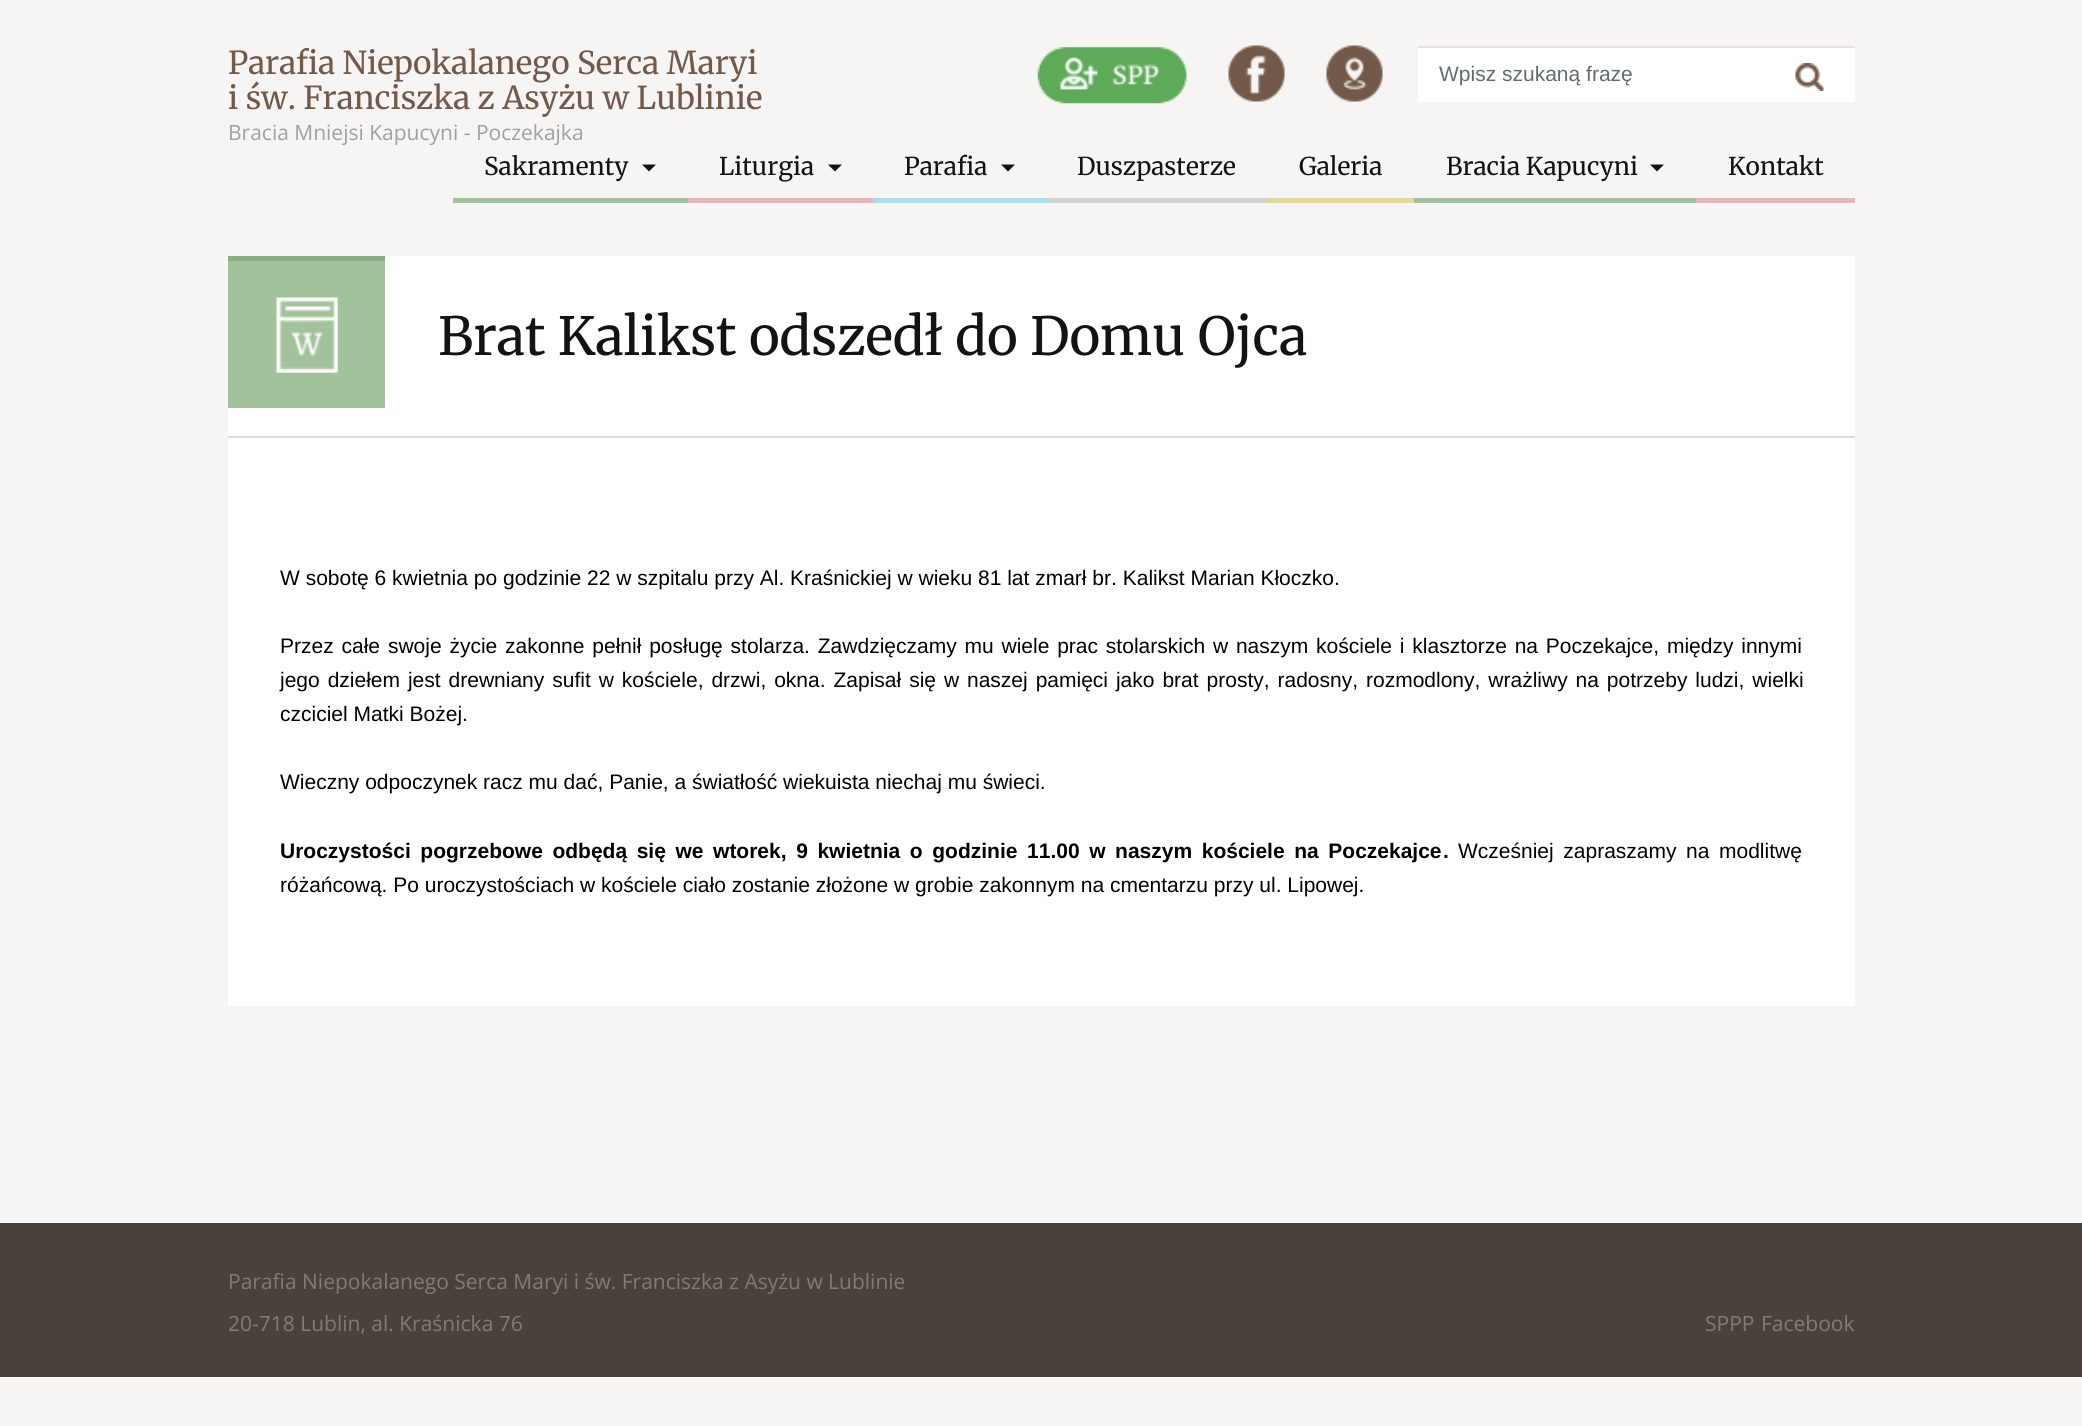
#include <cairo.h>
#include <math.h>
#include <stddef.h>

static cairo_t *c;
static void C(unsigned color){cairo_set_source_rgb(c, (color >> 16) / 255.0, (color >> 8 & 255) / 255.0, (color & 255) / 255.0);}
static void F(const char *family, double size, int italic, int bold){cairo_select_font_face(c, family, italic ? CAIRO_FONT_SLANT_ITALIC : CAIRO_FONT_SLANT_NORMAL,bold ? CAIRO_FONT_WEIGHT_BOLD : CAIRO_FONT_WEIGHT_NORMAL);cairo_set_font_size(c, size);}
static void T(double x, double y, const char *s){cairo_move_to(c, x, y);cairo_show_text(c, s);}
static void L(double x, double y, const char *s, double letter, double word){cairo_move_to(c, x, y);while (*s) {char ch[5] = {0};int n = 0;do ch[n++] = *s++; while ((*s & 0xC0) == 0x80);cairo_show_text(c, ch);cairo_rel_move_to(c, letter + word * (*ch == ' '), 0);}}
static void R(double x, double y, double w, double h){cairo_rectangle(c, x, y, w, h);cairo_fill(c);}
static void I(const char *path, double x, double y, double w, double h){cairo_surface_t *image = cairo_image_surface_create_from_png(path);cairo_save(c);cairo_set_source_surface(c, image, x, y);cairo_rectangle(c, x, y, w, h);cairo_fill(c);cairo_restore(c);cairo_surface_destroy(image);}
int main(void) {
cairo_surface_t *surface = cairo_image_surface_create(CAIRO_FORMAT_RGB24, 2082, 1426);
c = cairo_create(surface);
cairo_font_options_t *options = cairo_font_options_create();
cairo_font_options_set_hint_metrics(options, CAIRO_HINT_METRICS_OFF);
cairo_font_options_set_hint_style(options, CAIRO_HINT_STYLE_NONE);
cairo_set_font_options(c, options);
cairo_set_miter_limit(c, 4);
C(0xf7f5f3);
cairo_paint(c);
F("Merriweather Light",31.5,0,0);
C(0x725949);
T(228,74,"Parafia Niepokalanego Serca Maryi");
T(228,109,"i św. Franciszka z Asyżu w Lublinie");
F("Open Sans",21,0,0);
C(0xa0a0a0);
T(228,140,"Bracia Mniejsi Kapucyni - Poczekajka");
I("1.png",1037,47,150,57);
I("2.png",1228,45,57,57);
I("3.png",1326,45,57,57);
C(0xffffff);
R(1418,48,437,54);
C(0xe6e2dd);
R(1418,46,437,2);
F("Liberation Sans",21,0,0);
C(0x636c72);
T(1439,81,"Wpisz szukaną frazę");
I("4.png",1795,63,29,28);
C(0xa1c29a);
R(453,198,235,5);
F("Merriweather Light",24.5,0,0);
C(0x141212);
T(484,175,"Sakramenty");
cairo_new_path(c);
cairo_move_to(c,642,164.5);
cairo_line_to(c,656,164.5);
cairo_line_to(c,649,171.5);
cairo_close_path(c);
cairo_fill(c);
C(0xe4b6b6);
R(688,198,185,5);
C(0x141212);
T(719,175,"Liturgia");
cairo_new_path(c);
cairo_move_to(c,828,164.5);
cairo_line_to(c,842,164.5);
cairo_line_to(c,835,171.5);
cairo_close_path(c);
cairo_fill(c);
C(0xa6dff4);
R(873,198,174,5);
C(0x141212);
T(904,175,"Parafia");
cairo_new_path(c);
cairo_move_to(c,1001,164.5);
cairo_line_to(c,1015,164.5);
cairo_line_to(c,1008,171.5);
cairo_close_path(c);
cairo_fill(c);
C(0xd2d2d2);
R(1047,198,220,5);
C(0x141212);
T(1077,175,"Duszpasterze");
C(0xe3db95);
R(1267,198,147,5);
C(0x141212);
T(1299,175,"Galeria");
C(0xa1c29a);
R(1414,198,282,5);
C(0x141212);
T(1446,175,"Bracia Kapucyni");
cairo_new_path(c);
cairo_move_to(c,1650,164.5);
cairo_line_to(c,1664,164.5);
cairo_line_to(c,1657,171.5);
cairo_close_path(c);
cairo_fill(c);
C(0xe4b6b6);
R(1696,198,159,5);
C(0x141212);
T(1728,175,"Kontakt");
C(0xffffff);
R(228,256,1627,750);
C(0xdddddd);
R(228,436,1627,2);
C(0xa1c29a);
R(228,261,157,147);
I("5.png",276,297,62,76);
C(0x89af80);
R(228,256,157,5);
F("Merriweather Light",52.5,0,0);
C(0x141212);
T(438,355,"Brat Kalikst odszedł do Domu Ojca");
F("Liberation Sans",21,0,0);
C(0x000000);
T(280,585,"W sobotę 6 kwietnia po godzinie 22 w szpitalu przy Al. Kraśnickiej w wieku 81 lat zmarł br. Kalikst Marian Kłoczko.");
L(280,653,"Przez całe swoje życie zakonne pełnił posługę stolarza. Zawdzięczamy mu wiele prac stolarskich w naszym kościele i klasztorze na Poczekajce, między innymi",0,2);
L(280,687,"jego dziełem jest drewniany sufit w kościele, drzwi, okna. Zapisał się w naszej pamięci jako brat prosty, radosny, rozmodlony, wrażliwy na potrzeby ludzi, wielki",0,2.1);
T(280,721,"czciciel Matki Bożej.");
T(280,789,"Wieczny odpoczynek racz mu dać, Panie, a światłość wiekuista niechaj mu świeci.");
F("Liberation Sans",21,0,1);
L(280,858,"Uroczystości pogrzebowe odbędą się we wtorek, 9 kwietnia o godzinie 11.00 w naszym kościele na Poczekajce",0,3.75);
T(1443,858,".");
F("Liberation Sans",21,0,0);
L(1458,858,"Wcześniej zapraszamy na modlitwę",0,3.75);
T(280,892,"różańcową. Po uroczystościach w kościele ciało zostanie złożone w grobie zakonnym na cmentarzu przy ul. Lipowej.");
C(0x4b413b);
R(0,1223,2082,154);
F("Open Sans",21,0,0);
C(0x837a75);
T(228,1289,"Parafia Niepokalanego Serca Maryi i św. Franciszka z Asyżu w Lublinie");
T(228,1331,"20-718 Lublin, al. Kraśnicka 76");
T(1705,1331,"SPPP");
T(1761,1331,"Facebook");
cairo_surface_write_to_png(surface, "o.png");
cairo_font_options_destroy(options);
cairo_destroy(c);
cairo_surface_destroy(surface);
return 0;
}
